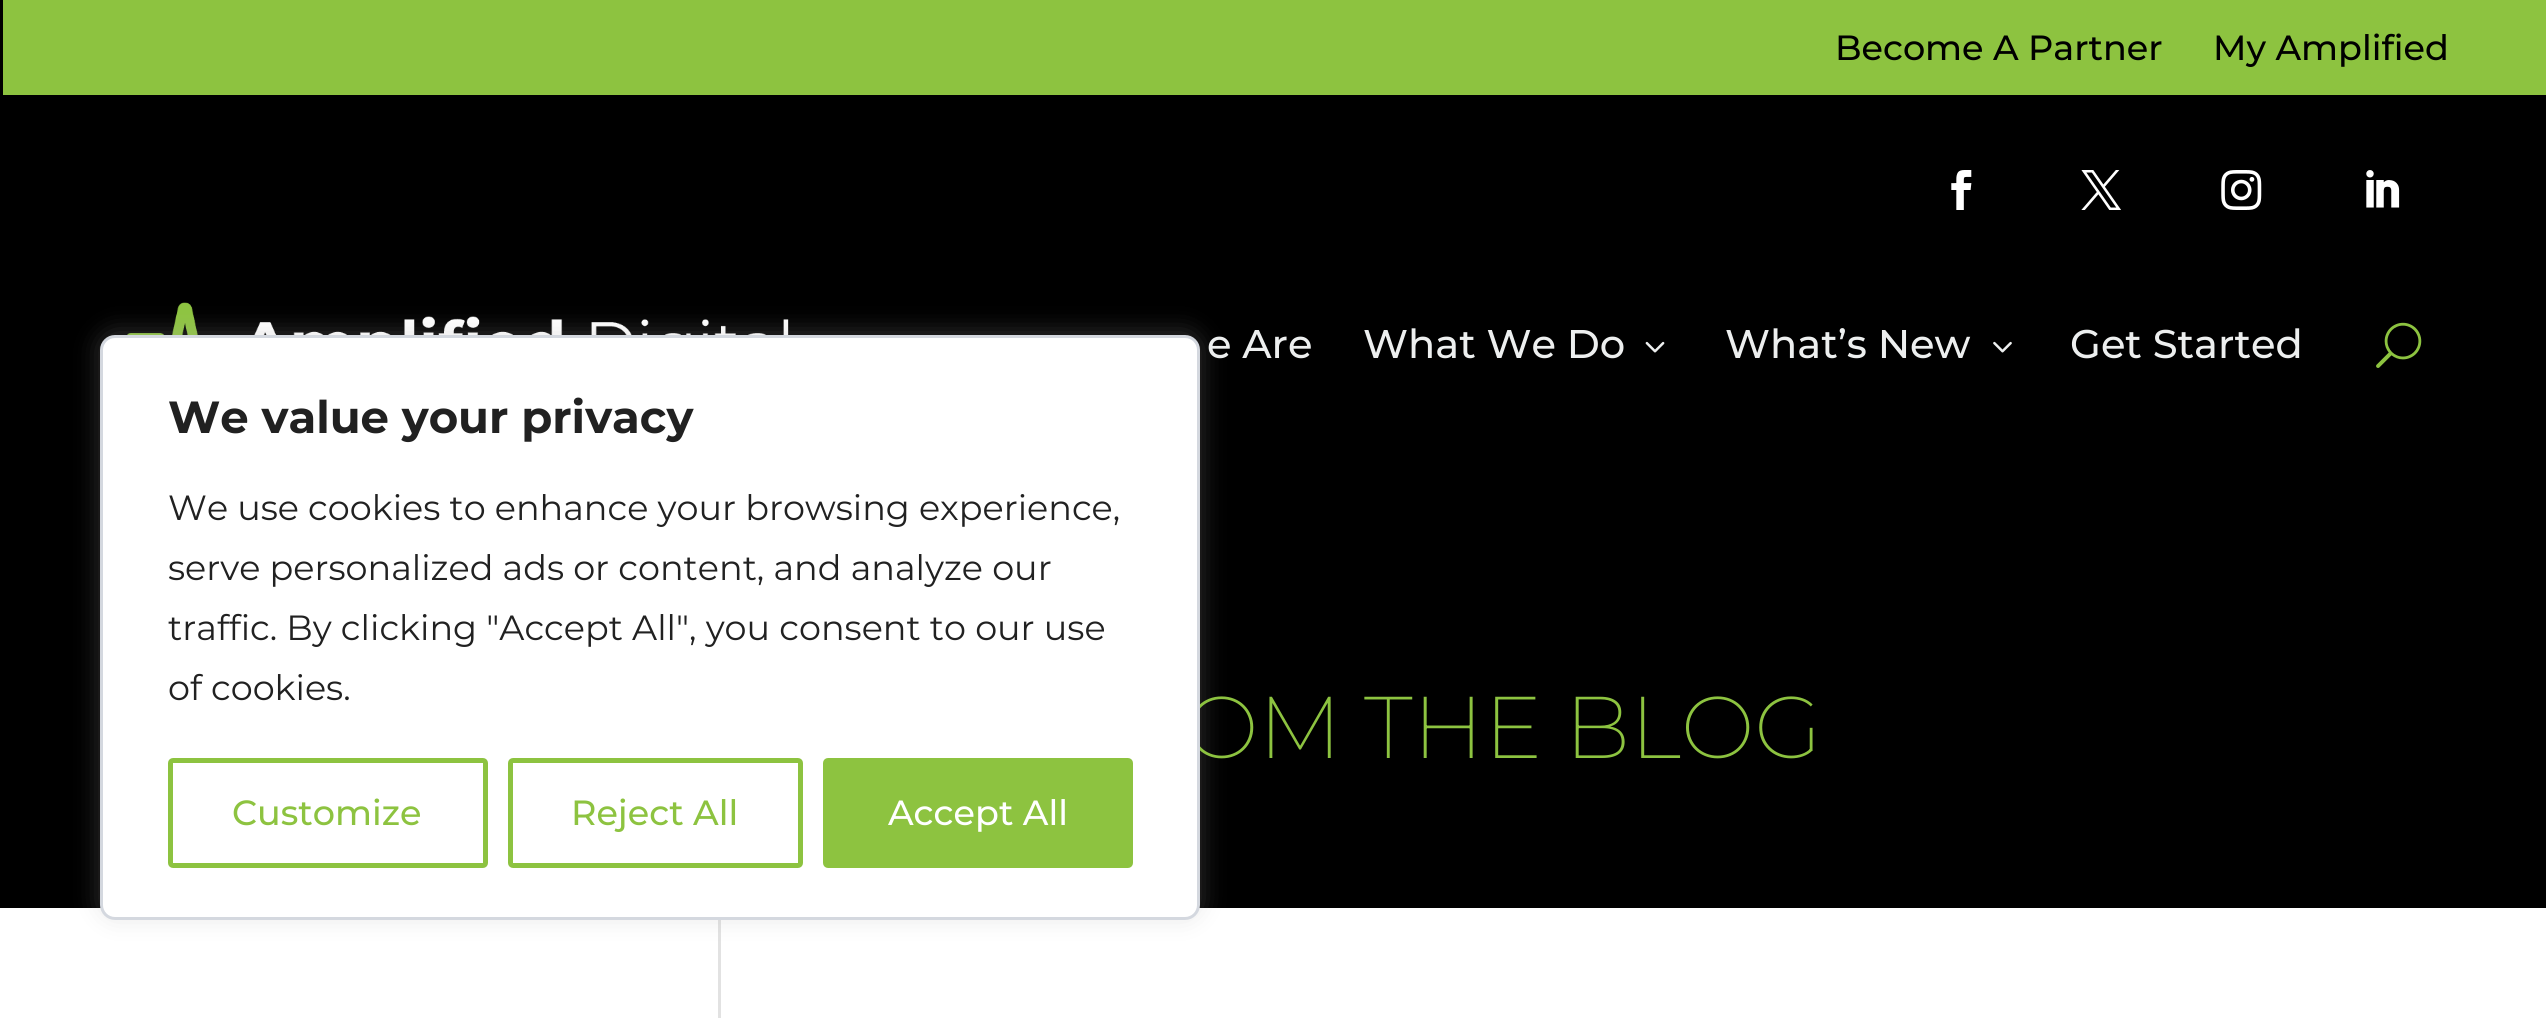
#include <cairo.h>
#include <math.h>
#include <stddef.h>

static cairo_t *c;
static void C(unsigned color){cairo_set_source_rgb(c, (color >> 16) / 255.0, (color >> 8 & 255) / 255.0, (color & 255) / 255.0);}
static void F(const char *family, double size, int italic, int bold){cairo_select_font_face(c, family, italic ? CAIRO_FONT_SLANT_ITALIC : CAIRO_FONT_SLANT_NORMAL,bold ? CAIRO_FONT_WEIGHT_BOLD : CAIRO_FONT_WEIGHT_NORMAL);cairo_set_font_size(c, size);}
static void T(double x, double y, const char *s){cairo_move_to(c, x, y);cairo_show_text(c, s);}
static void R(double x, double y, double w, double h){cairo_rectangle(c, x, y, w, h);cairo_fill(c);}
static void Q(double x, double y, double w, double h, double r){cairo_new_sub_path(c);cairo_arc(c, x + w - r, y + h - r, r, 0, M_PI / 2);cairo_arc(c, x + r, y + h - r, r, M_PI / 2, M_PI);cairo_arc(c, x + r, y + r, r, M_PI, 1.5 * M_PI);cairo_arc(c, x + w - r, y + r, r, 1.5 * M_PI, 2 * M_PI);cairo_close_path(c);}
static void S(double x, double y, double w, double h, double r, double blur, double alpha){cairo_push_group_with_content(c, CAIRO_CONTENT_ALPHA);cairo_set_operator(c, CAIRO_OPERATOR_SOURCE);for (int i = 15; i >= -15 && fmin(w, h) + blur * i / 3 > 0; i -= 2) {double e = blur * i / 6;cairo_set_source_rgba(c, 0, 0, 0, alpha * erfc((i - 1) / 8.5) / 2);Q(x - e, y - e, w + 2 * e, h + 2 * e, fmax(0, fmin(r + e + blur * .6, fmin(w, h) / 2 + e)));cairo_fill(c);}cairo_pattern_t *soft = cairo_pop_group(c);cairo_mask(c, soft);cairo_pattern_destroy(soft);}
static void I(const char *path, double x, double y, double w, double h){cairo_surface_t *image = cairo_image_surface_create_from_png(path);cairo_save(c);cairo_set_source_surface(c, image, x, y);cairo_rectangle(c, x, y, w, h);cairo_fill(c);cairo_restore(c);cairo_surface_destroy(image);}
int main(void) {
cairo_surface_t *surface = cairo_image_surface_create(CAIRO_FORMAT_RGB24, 2546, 1018);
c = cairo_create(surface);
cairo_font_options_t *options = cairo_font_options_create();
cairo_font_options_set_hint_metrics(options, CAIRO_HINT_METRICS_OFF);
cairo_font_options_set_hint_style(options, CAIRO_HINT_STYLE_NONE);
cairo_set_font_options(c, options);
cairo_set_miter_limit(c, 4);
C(0xffffff);
cairo_paint(c);
C(0x000000);
R(0,0,2546,908);
I("5.png",127,302,662,33);
C(0xe2e2e2);
R(718,920,3,98);
C(0xacabab);
S(100,333,1100,585,15,12.5,.3);
F("Montserrat Thin",87.5,0,0);
C(0x8dc340);
T(1185,758,"OM THE BLOG");
C(0xffffff);
Q(101.5,336.5,1097,582,13.5);
cairo_fill_preserve(c);
C(0xd4d8df);
cairo_set_line_width(c,3);
cairo_stroke(c);
F("Montserrat",45,0,1);
C(0x212121);
T(168,433,"We value your privacy");
F("Montserrat",35,0,0);
T(168,520,"We use cookies to enhance your browsing experience,");
T(168,580,"serve personalized ads or content, and analyze our");
T(168,640,"traffic. By clicking \"Accept All\", you consent to our use");
T(168,700,"of cookies.");
Q(170.5,760.5,315,105,2.5);
C(0x8dc340);
cairo_set_line_width(c,5);
cairo_stroke(c);
F("Montserrat Medium",35,0,0);
T(232,825,"Customize");
Q(510.5,760.5,290,105,2.5);
cairo_stroke(c);
T(571,825,"Reject All");
Q(825.5,760.5,305,105,2.5);
cairo_fill_preserve(c);
cairo_stroke(c);
C(0xffffff);
T(888,825,"Accept All");
C(0x8dc340);
R(3,0,2543,95);
C(0x000000);
T(1835,60,"Become A Partner");
T(2213,60,"My Amplified");
I("1.png",1951,170,21,40);
I("2.png",2081,170,40,40);
I("3.png",2221,170,41,40);
I("4.png",2366,170,34,38);
F("Montserrat Medium",40,0,0);
C(0xedefef);
T(1207,358,"e Are");
T(1363,358,"What We Do");
I("6.png",1645,341,20,12);
T(1725,358,"What’s New");
I("7.png",1993,341,19,12);
T(2070,358,"Get Started");
I("8.png",2376,322,46,46);
cairo_surface_write_to_png(surface, "o.png");
cairo_font_options_destroy(options);
cairo_destroy(c);
cairo_surface_destroy(surface);
return 0;
}
